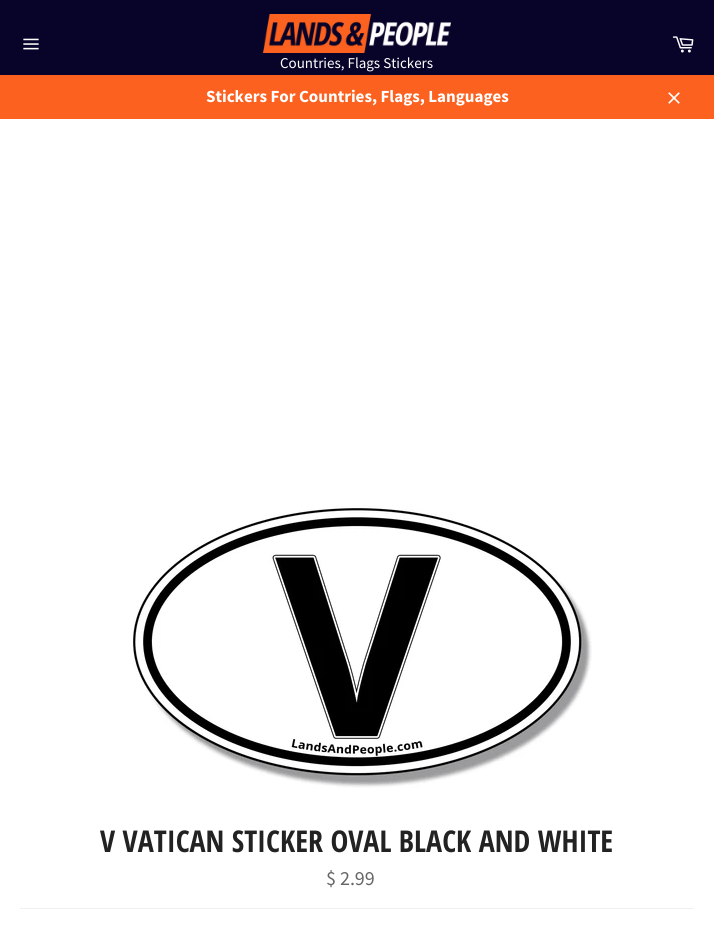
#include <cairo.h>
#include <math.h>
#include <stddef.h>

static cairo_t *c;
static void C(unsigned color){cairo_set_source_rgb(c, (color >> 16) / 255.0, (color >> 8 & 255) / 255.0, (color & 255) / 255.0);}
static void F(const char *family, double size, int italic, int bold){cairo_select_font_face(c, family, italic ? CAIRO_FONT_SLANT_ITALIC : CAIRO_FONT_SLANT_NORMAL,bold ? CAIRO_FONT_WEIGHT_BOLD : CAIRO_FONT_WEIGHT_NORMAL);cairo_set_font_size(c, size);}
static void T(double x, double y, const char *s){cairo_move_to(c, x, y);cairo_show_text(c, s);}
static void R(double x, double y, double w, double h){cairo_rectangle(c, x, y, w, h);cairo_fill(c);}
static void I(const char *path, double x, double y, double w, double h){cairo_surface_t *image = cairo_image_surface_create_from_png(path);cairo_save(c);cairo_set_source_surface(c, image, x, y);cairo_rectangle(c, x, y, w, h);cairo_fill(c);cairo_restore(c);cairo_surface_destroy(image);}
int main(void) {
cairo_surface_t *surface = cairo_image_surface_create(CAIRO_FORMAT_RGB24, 714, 931);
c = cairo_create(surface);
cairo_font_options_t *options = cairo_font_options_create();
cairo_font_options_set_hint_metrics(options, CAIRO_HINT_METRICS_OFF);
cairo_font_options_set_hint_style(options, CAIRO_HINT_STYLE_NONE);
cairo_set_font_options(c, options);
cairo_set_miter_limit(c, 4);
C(0xffffff);
cairo_paint(c);
C(0x080429);
R(0,0,714,75);
I("1.png",23,38,16,12);
I("2.png",672,36,22,17);
I("3.png",263,14,188,39);
F("Source Sans Pro",15,0,0);
C(0xffffff);
T(280,68,"Countries, Flags Stickers");
C(0xfc611f);
R(0,75,714,44);
F("Source Sans Pro",17,0,1);
C(0xffffff);
T(206,102,"Stickers For Countries, Flags, Languages");
I("4.png",668,92,12,12);
I("5.png",133,505,459,283);
F("Open Sans Condensed",30,0,1);
C(0x222222);
T(100,852,"V VATICAN STICKER OVAL BLACK AND WHITE");
F("Source Sans Pro",20,0,0);
C(0x666666);
T(326,885,"$ 2.99");
C(0xf0f0f0);
R(20,908,674,1);
cairo_surface_write_to_png(surface, "o.png");
cairo_font_options_destroy(options);
cairo_destroy(c);
cairo_surface_destroy(surface);
return 0;
}
